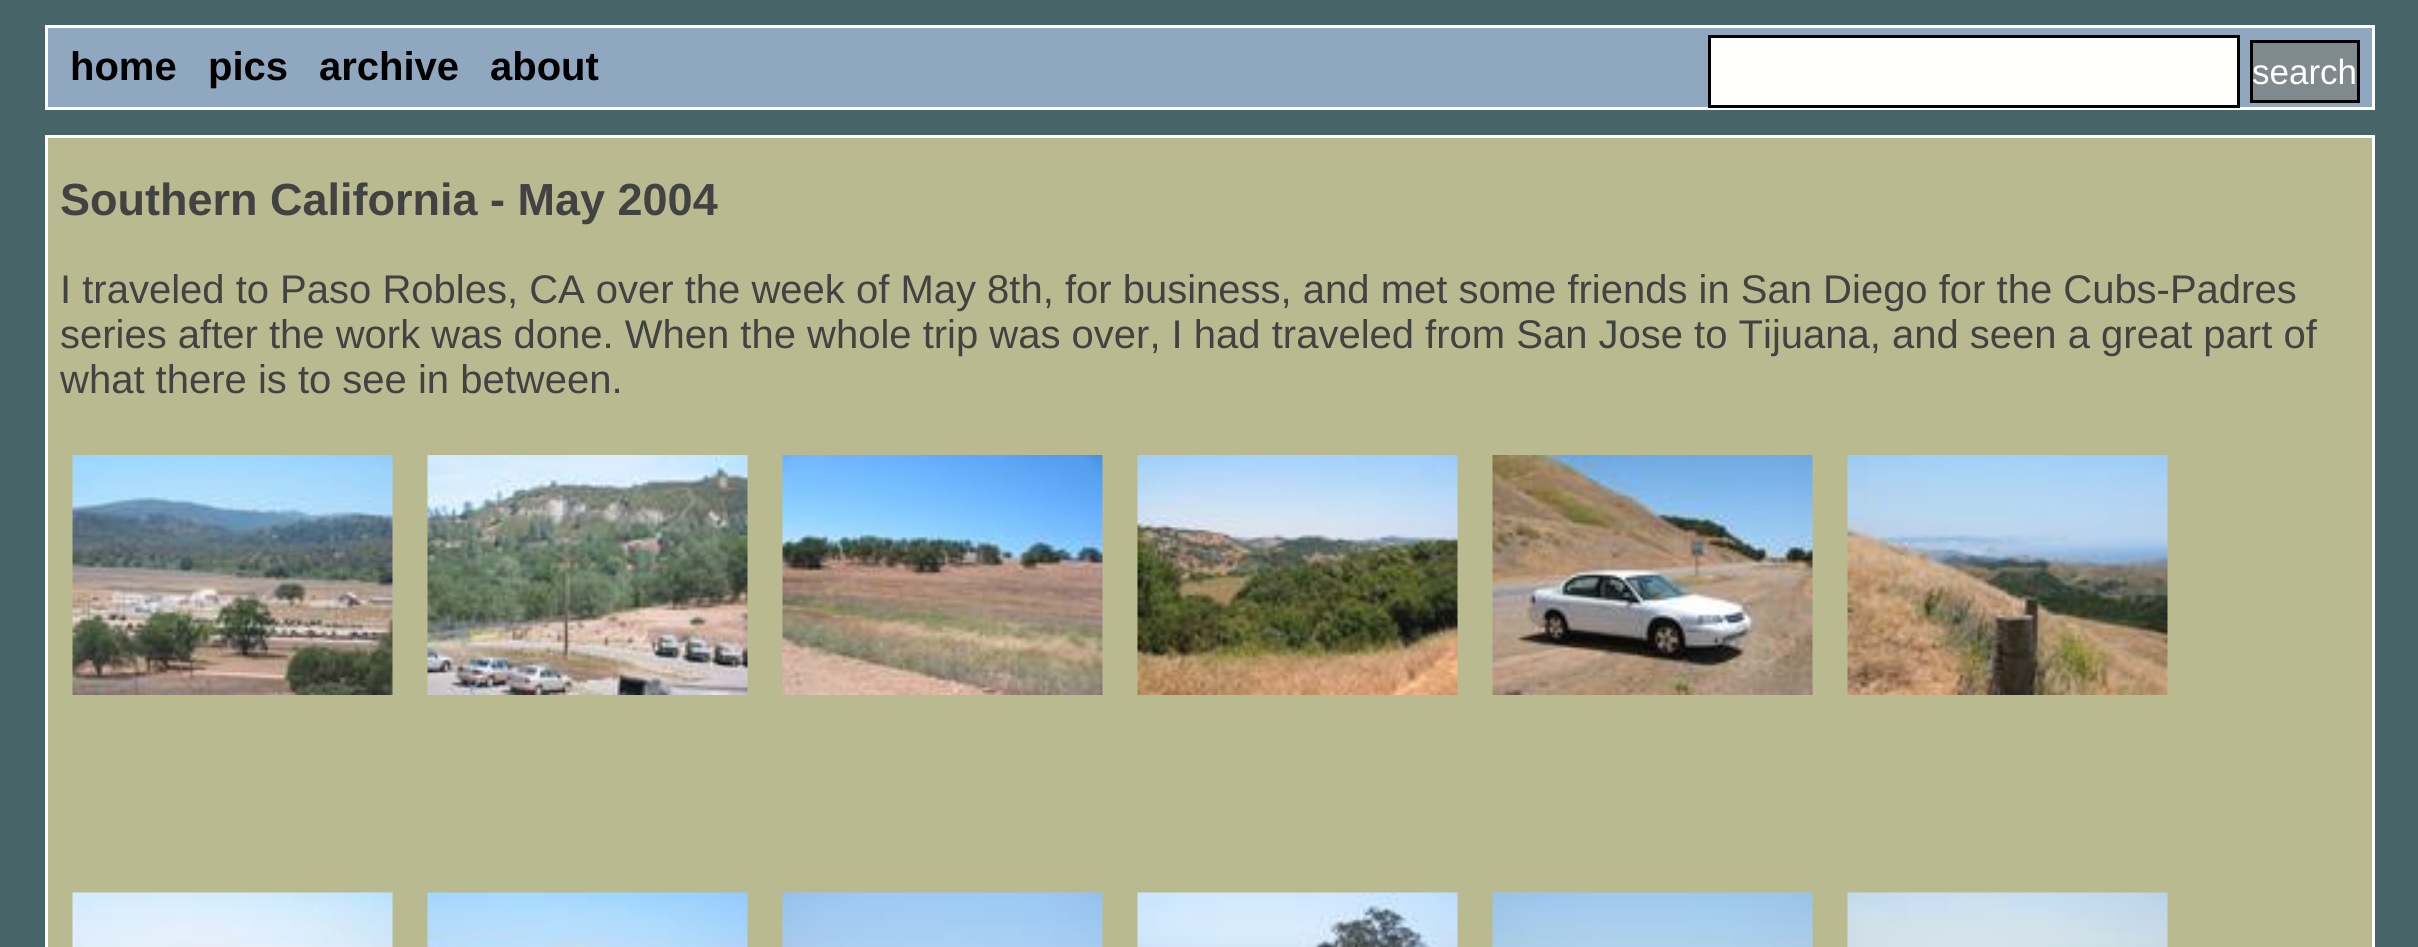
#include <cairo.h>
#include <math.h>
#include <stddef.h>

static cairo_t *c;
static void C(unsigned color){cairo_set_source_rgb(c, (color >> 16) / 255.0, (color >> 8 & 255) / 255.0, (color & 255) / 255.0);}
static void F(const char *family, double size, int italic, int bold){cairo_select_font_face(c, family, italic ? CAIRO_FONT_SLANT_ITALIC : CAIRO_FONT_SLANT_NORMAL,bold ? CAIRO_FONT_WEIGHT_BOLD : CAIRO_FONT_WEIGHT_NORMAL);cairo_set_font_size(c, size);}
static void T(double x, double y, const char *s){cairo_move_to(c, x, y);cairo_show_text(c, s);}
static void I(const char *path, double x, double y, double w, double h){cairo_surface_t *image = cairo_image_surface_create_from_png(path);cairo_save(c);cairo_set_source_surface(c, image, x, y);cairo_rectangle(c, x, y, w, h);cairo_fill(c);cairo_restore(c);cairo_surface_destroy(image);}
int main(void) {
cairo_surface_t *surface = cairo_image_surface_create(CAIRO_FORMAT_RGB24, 2418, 947);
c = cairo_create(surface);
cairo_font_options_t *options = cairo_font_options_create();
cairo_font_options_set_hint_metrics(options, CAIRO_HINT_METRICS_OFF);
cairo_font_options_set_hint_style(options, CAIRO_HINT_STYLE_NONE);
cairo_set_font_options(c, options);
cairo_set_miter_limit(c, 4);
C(0x476469);
cairo_paint(c);
C(0x8fa8bf);
cairo_rectangle(c,46.5,26.5,2327,82);
cairo_fill_preserve(c);
C(0xffffff);
cairo_set_line_width(c,3);
cairo_stroke(c);
F("Liberation Sans",40,0,1);
C(0x000000);
T(70,80,"home");
T(208,80,"pics");
T(319,80,"archive");
T(490,80,"about");
C(0xfffffc);
cairo_rectangle(c,1709.5,36.5,529,70);
cairo_fill_preserve(c);
C(0x000000);
cairo_stroke(c);
C(0x7f8a8f);
cairo_rectangle(c,2251.5,41.5,107,60);
cairo_fill_preserve(c);
C(0x000000);
cairo_stroke(c);
F("Liberation Sans",35,0,0);
C(0xffffff);
T(2252,84,"search");
C(0xbaba91);
cairo_rectangle(c,46.5,136.5,2327,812);
cairo_fill_preserve(c);
C(0xffffff);
cairo_stroke(c);
F("Liberation Sans",45,0,1);
C(0x424242);
T(60,215,"Southern California - May 2004");
F("Liberation Sans",40,0,0);
T(60,303,"I traveled to Paso Robles, CA over the week of May 8th, for business, and met some friends in San Diego for the Cubs-Padres");
T(60,348,"series after the work was done. When the whole trip was over, I had traveled from San Jose to Tijuana, and seen a great part of");
T(60,393,"what there is to see in between.");
I("1.png",72,455,321,240);
I("2.png",427,455,321,240);
I("3.png",782,455,321,240);
I("4.png",1137,455,321,240);
I("5.png",1492,455,321,240);
I("6.png",1847,455,321,240);
I("7.png",72,892,321,55);
I("8.png",427,892,321,55);
I("9.png",782,892,321,55);
I("10.png",1137,892,321,55);
I("11.png",1492,892,321,55);
I("12.png",1847,892,321,55);
cairo_surface_write_to_png(surface, "o.png");
cairo_font_options_destroy(options);
cairo_destroy(c);
cairo_surface_destroy(surface);
return 0;
}
